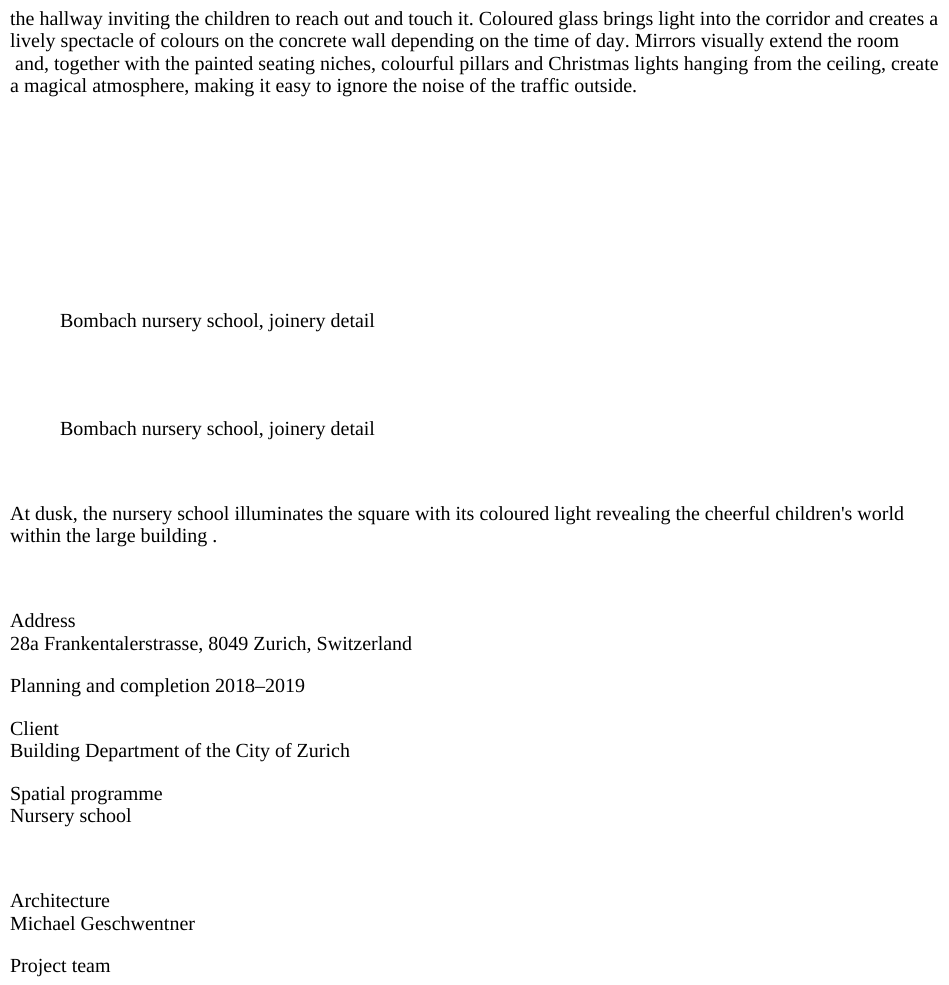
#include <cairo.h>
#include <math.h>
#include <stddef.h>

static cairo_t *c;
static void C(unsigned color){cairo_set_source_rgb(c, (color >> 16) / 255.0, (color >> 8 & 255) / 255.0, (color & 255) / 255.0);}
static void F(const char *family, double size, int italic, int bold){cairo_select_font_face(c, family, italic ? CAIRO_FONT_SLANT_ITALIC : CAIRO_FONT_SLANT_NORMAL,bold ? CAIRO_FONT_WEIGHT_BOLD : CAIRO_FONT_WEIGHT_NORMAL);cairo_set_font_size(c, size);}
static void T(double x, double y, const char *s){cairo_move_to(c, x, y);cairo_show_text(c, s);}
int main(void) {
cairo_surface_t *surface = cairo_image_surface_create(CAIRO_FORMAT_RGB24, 949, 985);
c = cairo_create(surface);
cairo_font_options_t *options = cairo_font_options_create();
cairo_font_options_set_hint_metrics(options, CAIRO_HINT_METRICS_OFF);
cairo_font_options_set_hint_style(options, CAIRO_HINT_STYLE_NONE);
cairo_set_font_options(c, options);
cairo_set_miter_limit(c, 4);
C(0xffffff);
cairo_paint(c);
F("Liberation Serif",20,0,0);
C(0x000000);
T(10,25,"the hallway inviting the children to reach out and touch it. Coloured glass brings light into the corridor and creates a");
T(10,47,"lively spectacle of colours on the concrete wall depending on the time of day. Mirrors visually extend the room");
T(15,70,"and, together with the painted seating niches, colourful pillars and Christmas lights hanging from the ceiling, create");
T(10,92,"a magical atmosphere, making it easy to ignore the noise of the traffic outside.");
T(60,327,"Bombach nursery school, joinery detail");
T(60,435,"Bombach nursery school, joinery detail");
T(10,520,"At dusk, the nursery school illuminates the square with its coloured light revealing the cheerful children's world");
T(10,542,"within the large building .");
T(10,627,"Address");
T(10,650,"28a Frankentalerstrasse, 8049 Zurich, Switzerland");
T(10,692,"Planning and completion 2018–2019");
T(10,735,"Client");
T(10,757,"Building Department of the City of Zurich");
T(10,800,"Spatial programme");
T(10,822,"Nursery school");
T(10,907,"Architecture");
T(10,930,"Michael Geschwentner");
T(10,972,"Project team");
cairo_surface_write_to_png(surface, "o.png");
cairo_font_options_destroy(options);
cairo_destroy(c);
cairo_surface_destroy(surface);
return 0;
}
